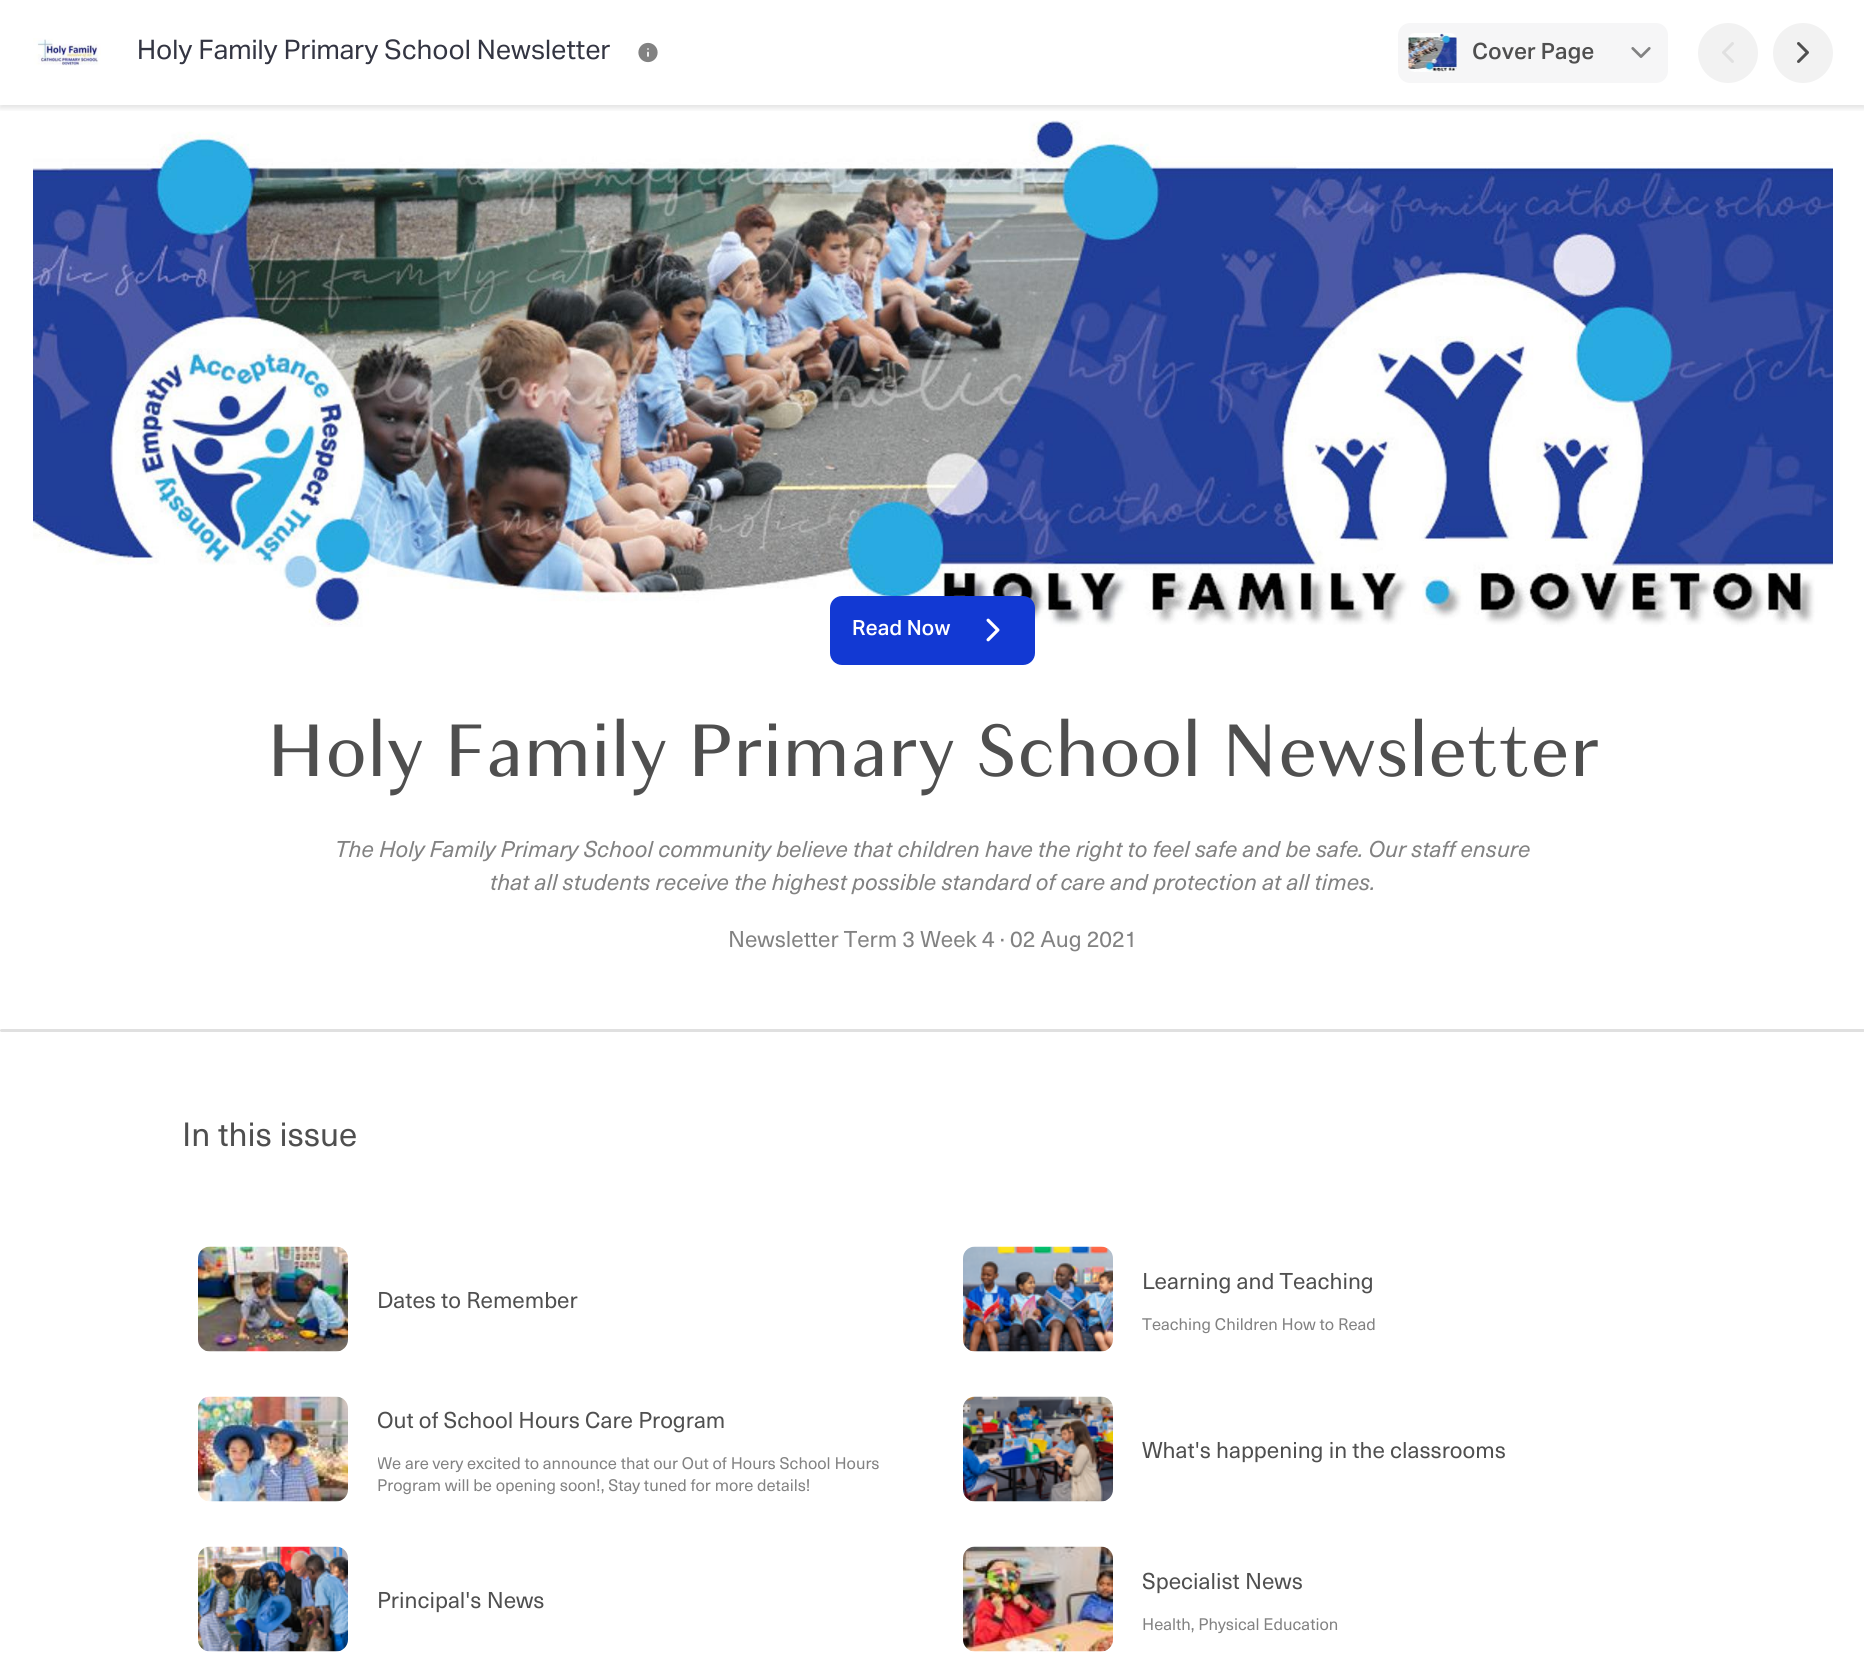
#include <cairo.h>
#include <math.h>
#include <stddef.h>

static cairo_t *c;
static void C(unsigned color){cairo_set_source_rgb(c, (color >> 16) / 255.0, (color >> 8 & 255) / 255.0, (color & 255) / 255.0);}
static void F(const char *family, double size, int italic, int bold){cairo_select_font_face(c, family, italic ? CAIRO_FONT_SLANT_ITALIC : CAIRO_FONT_SLANT_NORMAL,bold ? CAIRO_FONT_WEIGHT_BOLD : CAIRO_FONT_WEIGHT_NORMAL);cairo_set_font_size(c, size);}
static void T(double x, double y, const char *s){cairo_move_to(c, x, y);cairo_show_text(c, s);}
static void Q(double x, double y, double w, double h, double r){cairo_new_sub_path(c);cairo_arc(c, x + w - r, y + h - r, r, 0, M_PI / 2);cairo_arc(c, x + r, y + h - r, r, M_PI / 2, M_PI);cairo_arc(c, x + r, y + r, r, M_PI, 1.5 * M_PI);cairo_arc(c, x + w - r, y + r, r, 1.5 * M_PI, 2 * M_PI);cairo_close_path(c);}
static void S(double x, double y, double w, double h, double r, double blur, double alpha){cairo_push_group_with_content(c, CAIRO_CONTENT_ALPHA);cairo_set_operator(c, CAIRO_OPERATOR_SOURCE);for (int i = 15; i >= -15 && fmin(w, h) + blur * i / 3 > 0; i -= 2) {double e = blur * i / 6;cairo_set_source_rgba(c, 0, 0, 0, alpha * erfc((i - 1) / 8.5) / 2);Q(x - e, y - e, w + 2 * e, h + 2 * e, fmax(0, fmin(r + e + blur * .6, fmin(w, h) / 2 + e)));cairo_fill(c);}cairo_pattern_t *soft = cairo_pop_group(c);cairo_mask(c, soft);cairo_pattern_destroy(soft);}
static void I(const char *path, double x, double y, double w, double h){cairo_surface_t *image = cairo_image_surface_create_from_png(path);cairo_save(c);cairo_set_source_surface(c, image, x, y);cairo_rectangle(c, x, y, w, h);cairo_fill(c);cairo_restore(c);cairo_surface_destroy(image);}
int main(void) {
cairo_surface_t *surface = cairo_image_surface_create(CAIRO_FORMAT_RGB24, 1864, 1662);
c = cairo_create(surface);
cairo_font_options_t *options = cairo_font_options_create();
cairo_font_options_set_hint_metrics(options, CAIRO_HINT_METRICS_OFF);
cairo_font_options_set_hint_style(options, CAIRO_HINT_STYLE_NONE);
cairo_set_font_options(c, options);
cairo_set_miter_limit(c, 4);
C(0xffffff);
cairo_paint(c);
cairo_save(c);
cairo_rectangle(c,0,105,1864,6);
cairo_clip(c);
C(0x000000);
S(0,3,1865,105,0,3,.12);
cairo_restore(c);
I("1.png",33,38,68,28);
F("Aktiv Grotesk",27,0,0);
C(0x333542);
T(137,59,"Holy Family Primary School Newsletter");
I("2.png",638,42,20,21);
C(0xf6f6f7);
Q(1398,23,270,60,12);
cairo_fill(c);
I("3.png",1408,33,49,39);
F("Aktiv Grotesk Medium",22.5,0,0);
C(0x4f4f4f);
T(1472,59,"Cover Page");
I("4.png",1631,47,20,11);
C(0xf2f2f2);
cairo_arc(c,1728,53,30,0,2 * M_PI);
cairo_fill(c);
I("5.png",1722,42,12,21);
cairo_arc(c,1803,53,30,0,2 * M_PI);
cairo_fill(c);
I("6.png",1797,42,12,21);
I("7.png",33,120,1800,507);
C(0x1239d3);
Q(830,596,205,69,12);
cairo_fill(c);
F("Aktiv Grotesk Medium",21,0,0);
C(0xffffff);
T(852,635,"Read Now");
I("8.png",986,618,14,24);
F("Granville",78,0,0);
C(0x4f4f4f);
T(266,776,"Holy Family Primary School Newsletter");
F("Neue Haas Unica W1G",22.5,1,0);
C(0x828282);
T(335,857,"The Holy Family Primary School community believe that children have the right to feel safe and be safe. Our staff ensure");
T(490,890,"that all students receive the highest possible standard of care and protection at all times.");
F("Neue Haas Unica W1G",22.5,0,0);
T(728,947,"Newsletter Term 3 Week 4 · 02 Aug 2021");
C(0xe0e0e0);
Q(0,1029,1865,3,1.5);
cairo_fill(c);
F("Neue Haas Unica W1G",33,0,0);
C(0x4f4f4f);
T(182,1146,"In this issue");
I("9.png",198,1246,150,106);
F("Neue Haas Unica W1G",22.5,0,0);
T(377,1308,"Dates to Remember");
I("10.png",963,1246,150,106);
T(1142,1289,"Learning and Teaching");
F("Neue Haas Unica W1G",16.5,0,0);
C(0x828282);
T(1142,1330,"Teaching Children How to Read");
I("11.png",198,1396,150,106);
F("Neue Haas Unica W1G",22.5,0,0);
C(0x4f4f4f);
T(377,1428,"Out of School Hours Care Program");
cairo_save(c);
cairo_rectangle(c,378,1403,525,93);
cairo_clip(c);
F("Neue Haas Unica W1G",16.5,0,0);
C(0x828282);
T(377,1469,"We are very excited to announce that our Out of Hours School Hours");
cairo_restore(c);
F("Neue Haas Unica W1G",16.5,0,0);
C(0x828282);
T(377,1491,"Program will be opening soon!, Stay tuned for more details!");
I("12.png",963,1396,150,106);
F("Neue Haas Unica W1G",22.5,0,0);
C(0x4f4f4f);
T(1142,1458,"What's happening in the classrooms");
I("13.png",198,1546,150,106);
T(377,1608,"Principal's News");
I("14.png",963,1546,150,106);
T(1142,1589,"Specialist News");
F("Neue Haas Unica W1G",16.5,0,0);
C(0x828282);
T(1142,1630,"Health, Physical Education");
cairo_surface_write_to_png(surface, "o.png");
cairo_font_options_destroy(options);
cairo_destroy(c);
cairo_surface_destroy(surface);
return 0;
}
